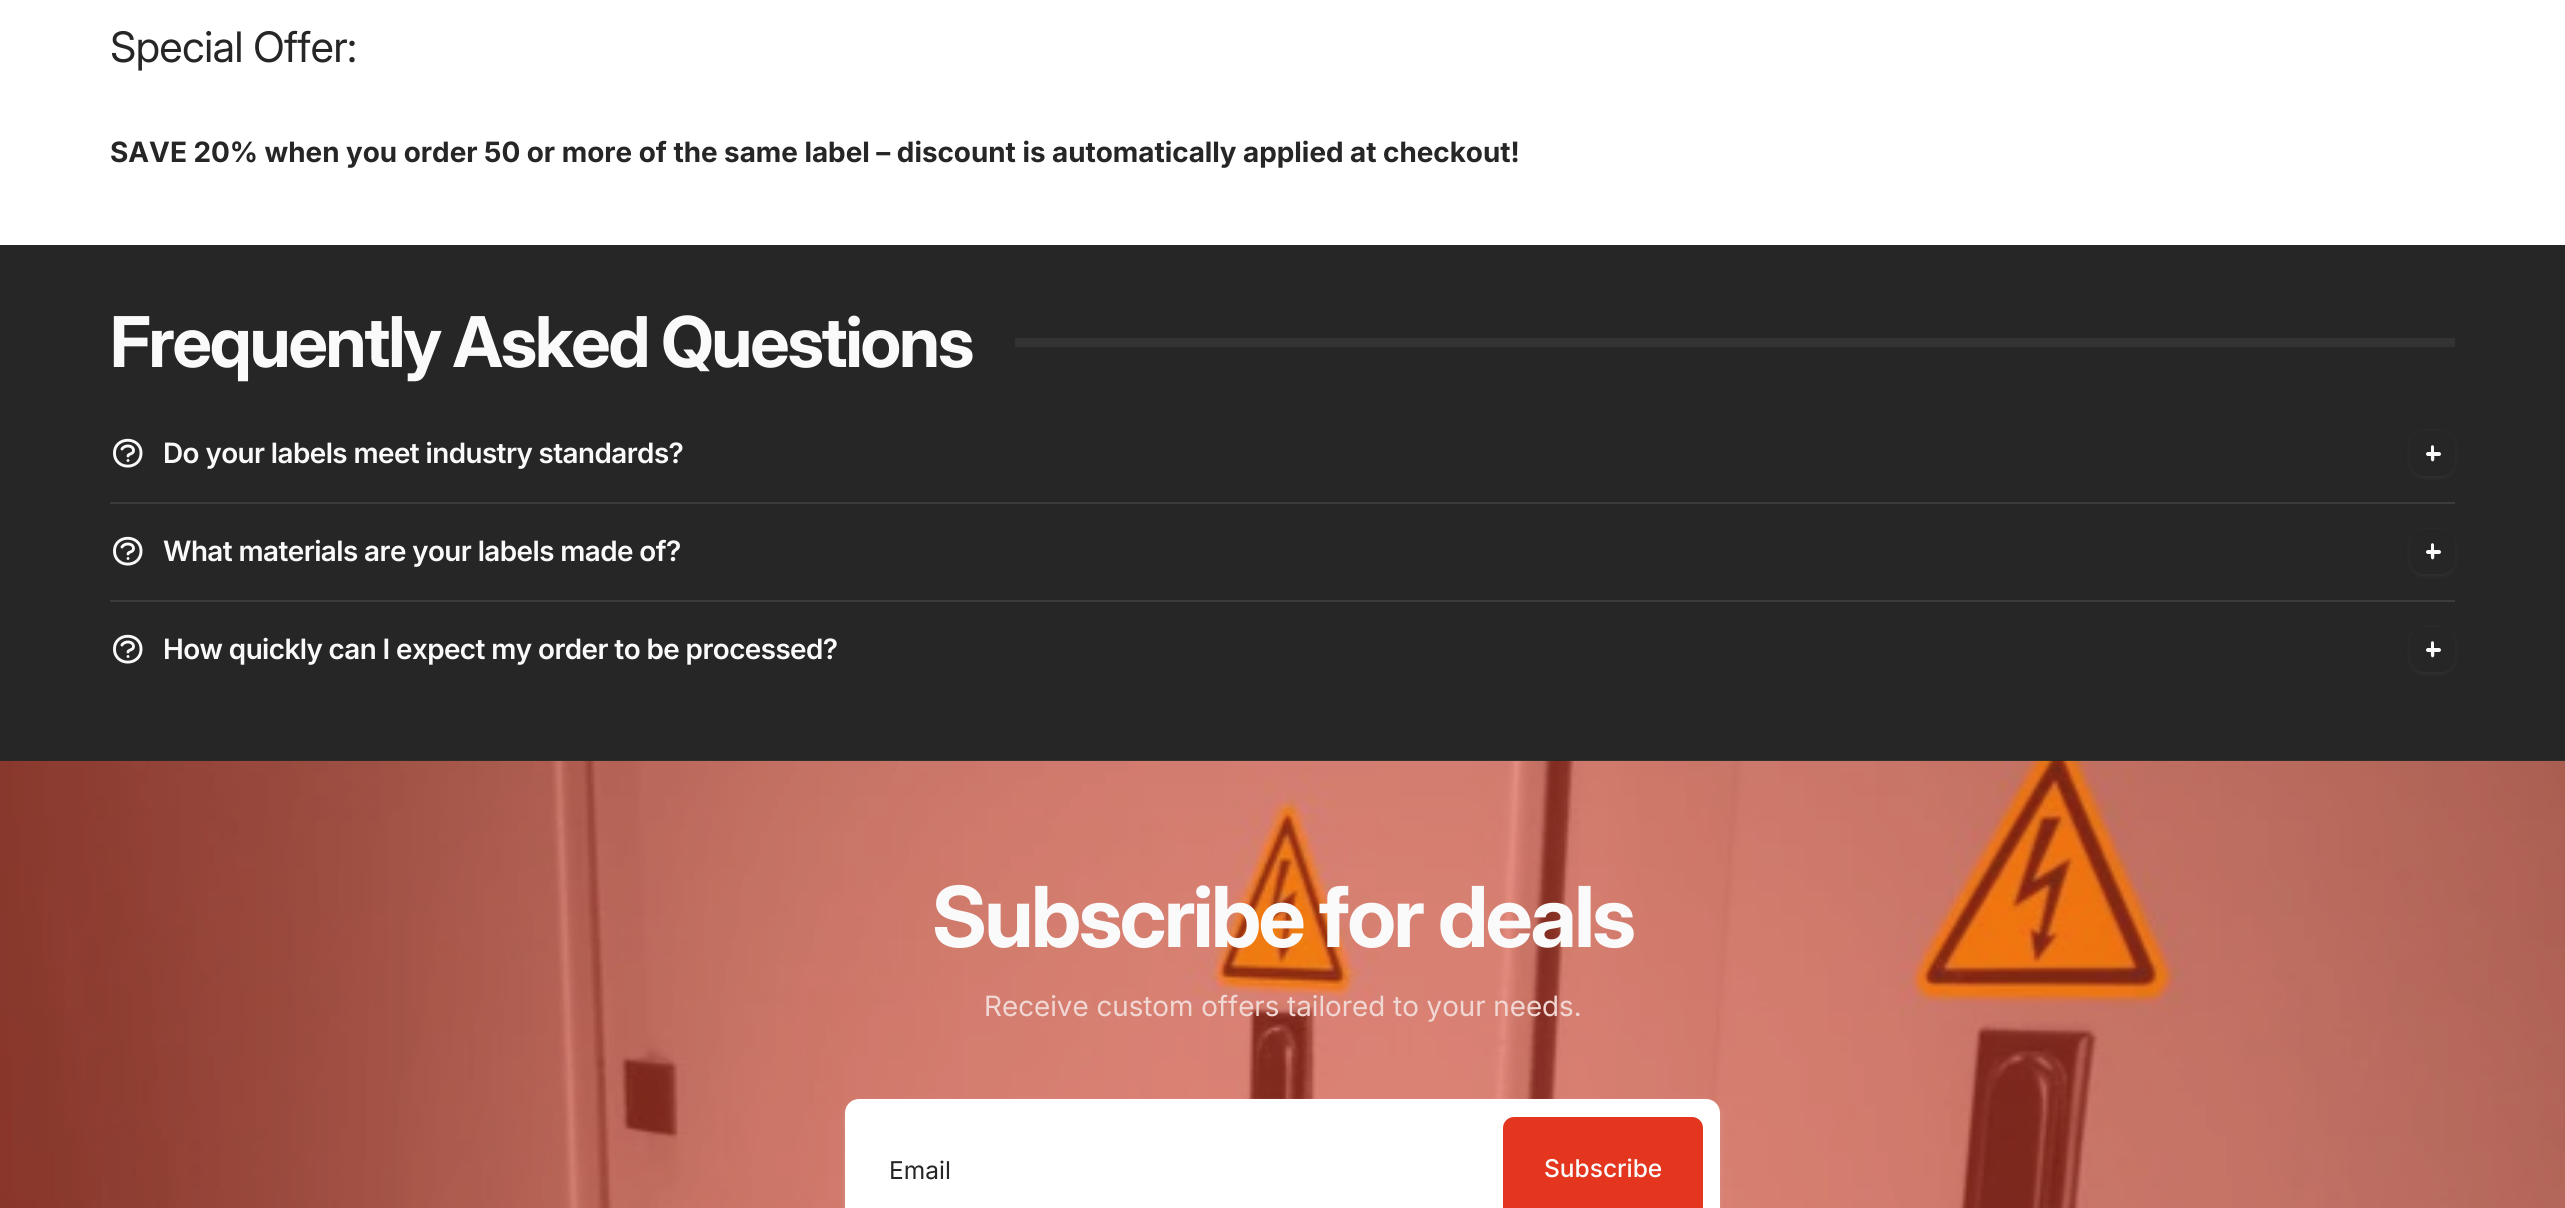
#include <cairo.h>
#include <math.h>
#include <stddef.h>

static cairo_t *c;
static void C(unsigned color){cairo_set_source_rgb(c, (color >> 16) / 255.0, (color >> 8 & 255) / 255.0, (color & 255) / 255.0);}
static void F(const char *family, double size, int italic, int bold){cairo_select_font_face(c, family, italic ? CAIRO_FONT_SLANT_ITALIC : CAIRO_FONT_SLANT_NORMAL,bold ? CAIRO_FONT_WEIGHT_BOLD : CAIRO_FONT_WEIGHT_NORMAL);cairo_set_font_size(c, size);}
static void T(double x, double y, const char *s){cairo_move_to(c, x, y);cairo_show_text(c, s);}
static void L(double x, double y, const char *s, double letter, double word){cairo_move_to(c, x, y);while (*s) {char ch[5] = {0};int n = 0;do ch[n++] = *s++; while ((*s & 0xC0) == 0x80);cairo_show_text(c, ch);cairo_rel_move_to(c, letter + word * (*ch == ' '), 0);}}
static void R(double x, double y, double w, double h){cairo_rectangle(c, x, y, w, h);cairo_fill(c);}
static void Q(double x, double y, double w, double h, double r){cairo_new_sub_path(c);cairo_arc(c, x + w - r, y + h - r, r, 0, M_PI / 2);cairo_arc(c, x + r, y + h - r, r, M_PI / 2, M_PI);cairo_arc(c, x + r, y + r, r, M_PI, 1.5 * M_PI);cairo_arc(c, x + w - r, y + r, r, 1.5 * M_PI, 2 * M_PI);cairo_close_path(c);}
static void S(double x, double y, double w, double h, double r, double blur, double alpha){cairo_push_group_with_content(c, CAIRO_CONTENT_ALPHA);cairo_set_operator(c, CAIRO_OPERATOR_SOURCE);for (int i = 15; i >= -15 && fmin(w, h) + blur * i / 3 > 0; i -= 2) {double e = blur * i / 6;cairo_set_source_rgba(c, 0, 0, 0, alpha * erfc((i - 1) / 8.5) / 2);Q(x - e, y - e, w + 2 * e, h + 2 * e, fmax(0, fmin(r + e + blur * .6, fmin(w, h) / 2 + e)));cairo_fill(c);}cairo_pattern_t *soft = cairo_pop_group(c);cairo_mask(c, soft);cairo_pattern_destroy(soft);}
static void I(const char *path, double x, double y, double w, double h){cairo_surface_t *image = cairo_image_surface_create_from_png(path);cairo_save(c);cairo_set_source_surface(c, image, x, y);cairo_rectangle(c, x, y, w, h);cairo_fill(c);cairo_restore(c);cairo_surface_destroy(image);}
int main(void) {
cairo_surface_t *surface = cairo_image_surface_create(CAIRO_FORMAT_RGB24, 2565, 1208);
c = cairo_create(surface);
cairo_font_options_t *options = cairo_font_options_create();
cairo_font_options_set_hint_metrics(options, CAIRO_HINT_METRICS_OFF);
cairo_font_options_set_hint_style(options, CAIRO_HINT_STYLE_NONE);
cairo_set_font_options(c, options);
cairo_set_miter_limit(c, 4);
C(0xffffff);
cairo_paint(c);
F("Inter",42,0,0);
C(0x262626);
L(110,62,"Special Offer:",-.8,0);
F("Inter",28,0,1);
T(110,162,"SAVE 20% when you order 50 or more of the same label – discount is automatically applied at checkout!");
R(0,245,2565,516);
F("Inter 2",70,0,1);
C(0xfafafa);
L(110,367,"Frequently Asked Questions",-2.1,0);
C(0x333333);
R(1015,338,1440,9);
cairo_new_path(c);
cairo_move_to(c,122,449);
cairo_curve_to(c,124.5,444.5,133.5,445,133.5,450.5);
cairo_curve_to(c,133.5,454.5,128,453.5,128,456);
cairo_move_to(c,128,460.5);
cairo_line_to(c,128,460.5);
cairo_move_to(c,141,453);
cairo_curve_to(c,141,470.5,114.5,470.5,114.5,453);
cairo_curve_to(c,114.5,436,141,436,141,453);
cairo_close_path(c);
C(0xfafafa);
cairo_set_line_width(c,2.9);
cairo_set_line_cap(c,CAIRO_LINE_CAP_ROUND);
cairo_set_line_join(c,CAIRO_LINE_JOIN_ROUND);
cairo_stroke(c);
F("Inter SemiBold",28,0,0);
L(163,463,"Do your labels meet industry standards?",-.55,0);
C(0xfafafa);
S(2410,432,45,46,14,2,.05);
C(0x262626);
Q(2410,431,45,45,14);
cairo_fill(c);
C(0xfafafa);
cairo_new_path(c);
cairo_move_to(c,2434,447);
cairo_line_to(c,2434,453);
cairo_curve_to(c,2434,455,2435,460,2433.5,461);
cairo_curve_to(c,2430,463,2431,456,2431,455);
cairo_line_to(c,2431,446.5);
cairo_curve_to(c,2431.5,444.5,2434,445,2434,447);
cairo_close_path(c);
cairo_fill(c);
Q(2426,452,15,4,2);
cairo_fill(c);
C(0x3b3b3b);
R(110,502,2345,2);
cairo_new_path(c);
cairo_move_to(c,122,547);
cairo_curve_to(c,124.5,542.5,133.5,543,133.5,548.5);
cairo_curve_to(c,133.5,552.5,128,551.5,128,554);
cairo_move_to(c,128,558.5);
cairo_line_to(c,128,558.5);
cairo_move_to(c,141,551);
cairo_curve_to(c,141,568.5,114.5,568.5,114.5,551);
cairo_curve_to(c,114.5,534,141,534,141,551);
cairo_close_path(c);
C(0xfafafa);
cairo_stroke(c);
L(163,561,"What materials are your labels made of?",-.55,0);
C(0xfafafa);
S(2410,530,45,46,14,2,.05);
C(0x262626);
Q(2410,529,45,45,14);
cairo_fill(c);
C(0xfafafa);
cairo_new_path(c);
cairo_move_to(c,2434,545);
cairo_line_to(c,2434,551);
cairo_curve_to(c,2434,553,2435,558,2433.5,559);
cairo_curve_to(c,2430,561,2431,554,2431,553);
cairo_line_to(c,2431,544.5);
cairo_curve_to(c,2431.5,542.5,2434,543,2434,545);
cairo_close_path(c);
cairo_fill(c);
Q(2426,550,15,4,2);
cairo_fill(c);
C(0x3b3b3b);
R(110,600,2345,2);
cairo_new_path(c);
cairo_move_to(c,122,645);
cairo_curve_to(c,124.5,640.5,133.5,641,133.5,646.5);
cairo_curve_to(c,133.5,650.5,128,649.5,128,652);
cairo_move_to(c,128,656.5);
cairo_line_to(c,128,656.5);
cairo_move_to(c,141,649);
cairo_curve_to(c,141,666.5,114.5,666.5,114.5,649);
cairo_curve_to(c,114.5,632,141,632,141,649);
cairo_close_path(c);
C(0xfafafa);
cairo_stroke(c);
L(163,659,"How quickly can I expect my order to be processed?",-.55,0);
C(0xfafafa);
S(2410,628,45,46,14,2,.05);
C(0x262626);
Q(2410,627,45,45,14);
cairo_fill(c);
C(0xfafafa);
cairo_new_path(c);
cairo_move_to(c,2434,643);
cairo_line_to(c,2434,649);
cairo_curve_to(c,2434,651,2435,656,2433.5,657);
cairo_curve_to(c,2430,659,2431,652,2431,651);
cairo_line_to(c,2431,642.5);
cairo_curve_to(c,2431.5,640.5,2434,641,2434,643);
cairo_close_path(c);
cairo_fill(c);
Q(2426,648,15,4,2);
cairo_fill(c);
I("1.png",0,760,2565,448);
F("Inter 2",84,0,1);
L(932,947,"Subscribe for deals",-2.5,0);
F("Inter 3",28,0,0);
C(0xf1d7d3);
T(984,1016,"Receive custom offers tailored to your needs.");
C(0xfafafa);
S(845,1101,875,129,14,2.5,.1);
S(845,1101,875,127,14,2,.06);
C(0xffffff);
Q(845,1099,875,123,14);
cairo_fill(c);
F("Inter 2",24.5,0,0);
C(0x262626);
T(889,1179,"Email");
C(0xe4351e);
Q(1504,1118,198,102,10);
cairo_fill_preserve(c);
cairo_set_line_width(c,2);
cairo_set_line_cap(c,CAIRO_LINE_CAP_BUTT);
cairo_set_line_join(c,CAIRO_LINE_JOIN_MITER);
cairo_stroke(c);
F("Inter Medium",24.5,0,0);
C(0xfafafa);
T(1544,1177,"Subscribe");
cairo_surface_write_to_png(surface, "o.png");
cairo_font_options_destroy(options);
cairo_destroy(c);
cairo_surface_destroy(surface);
return 0;
}
